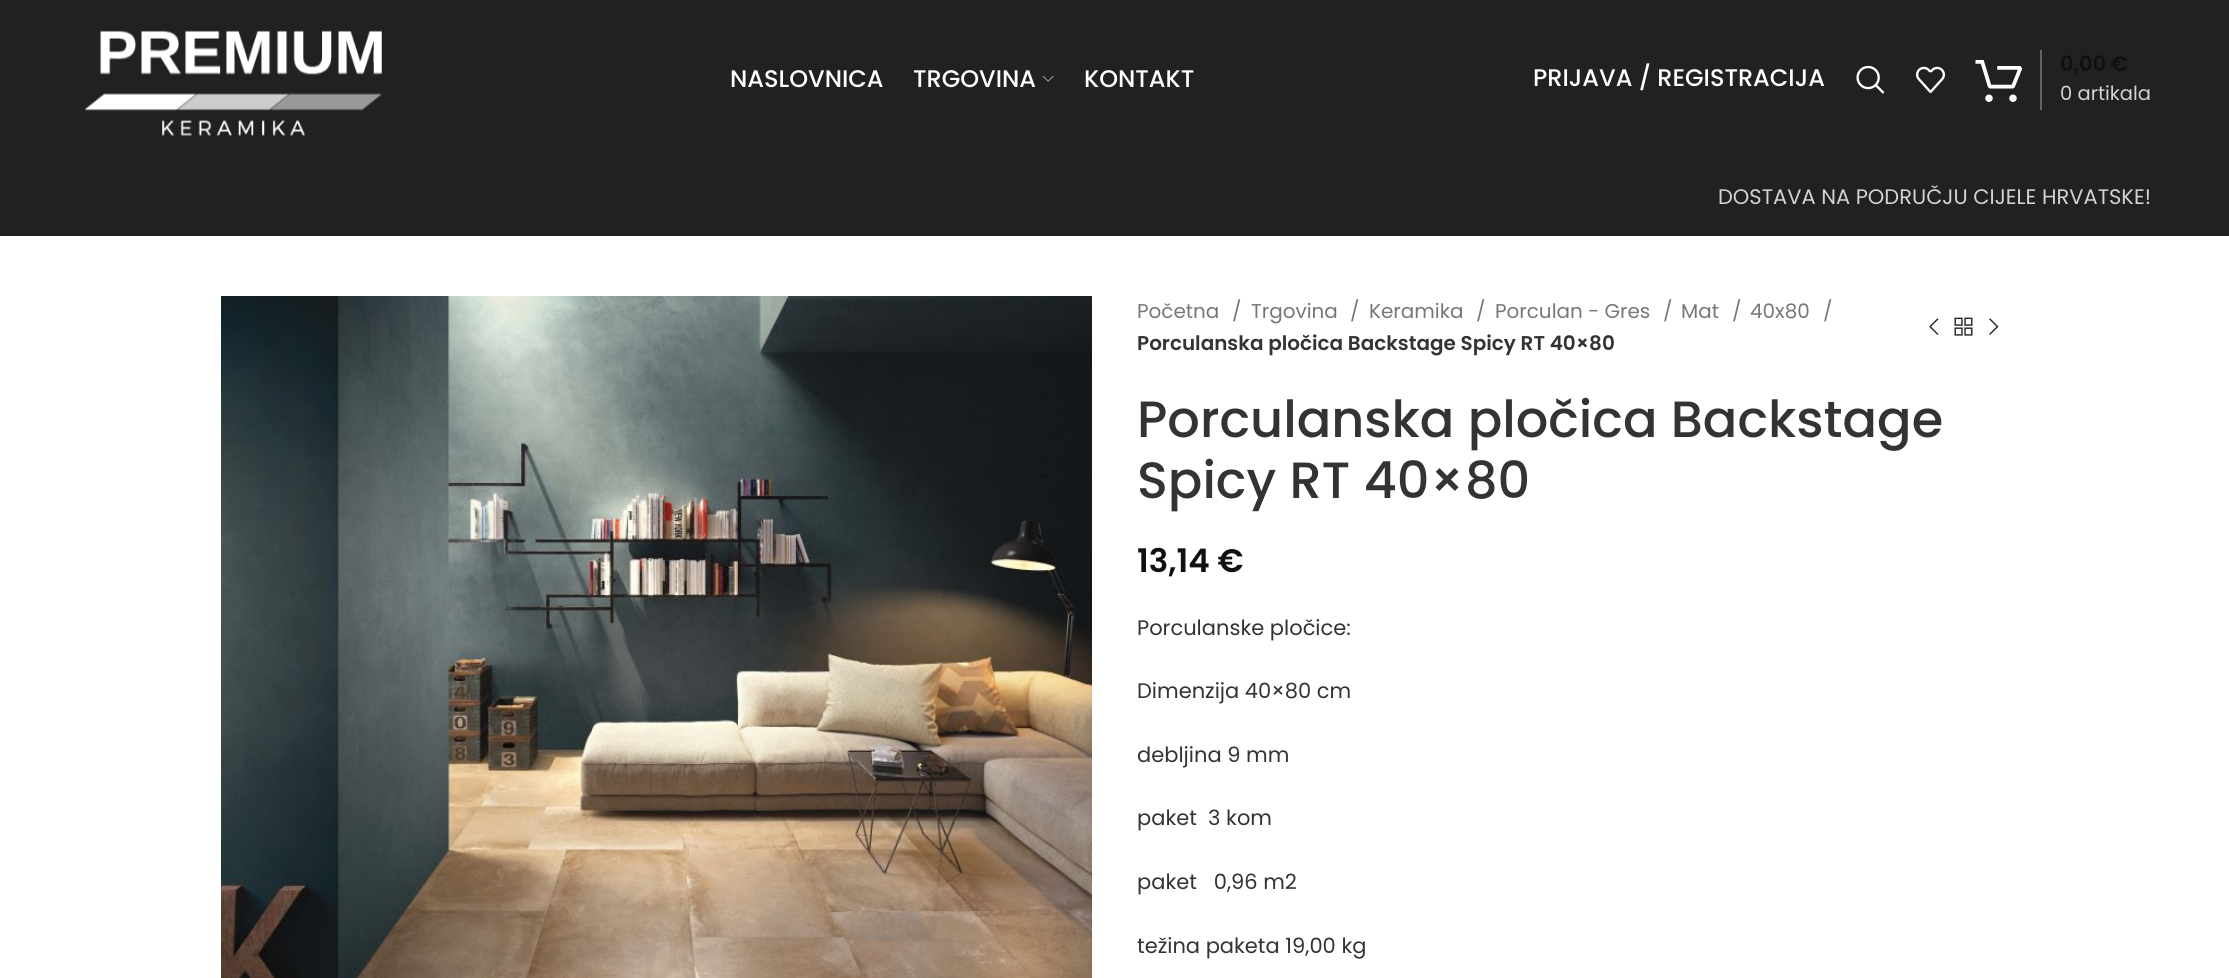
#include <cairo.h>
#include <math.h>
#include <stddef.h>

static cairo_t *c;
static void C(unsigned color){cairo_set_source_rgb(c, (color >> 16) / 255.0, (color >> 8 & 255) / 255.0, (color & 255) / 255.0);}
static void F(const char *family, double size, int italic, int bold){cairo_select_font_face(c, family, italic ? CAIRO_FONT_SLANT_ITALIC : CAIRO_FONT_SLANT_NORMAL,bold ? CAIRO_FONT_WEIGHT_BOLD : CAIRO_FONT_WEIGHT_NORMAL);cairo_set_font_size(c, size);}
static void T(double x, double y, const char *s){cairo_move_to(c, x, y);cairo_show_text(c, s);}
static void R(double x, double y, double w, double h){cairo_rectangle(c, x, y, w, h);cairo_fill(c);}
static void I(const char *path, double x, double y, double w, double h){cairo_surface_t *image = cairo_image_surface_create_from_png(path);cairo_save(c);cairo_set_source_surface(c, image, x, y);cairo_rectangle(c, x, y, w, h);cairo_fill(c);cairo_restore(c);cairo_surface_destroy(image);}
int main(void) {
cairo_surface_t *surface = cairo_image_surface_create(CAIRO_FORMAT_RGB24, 2229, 978);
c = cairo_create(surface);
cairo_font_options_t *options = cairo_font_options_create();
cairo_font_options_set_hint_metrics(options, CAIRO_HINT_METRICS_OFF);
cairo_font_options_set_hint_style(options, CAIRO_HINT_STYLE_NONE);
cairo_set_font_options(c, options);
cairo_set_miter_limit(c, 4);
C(0xffffff);
cairo_paint(c);
C(0x212121);
R(0,0,2229,236);
I("1.png",85,30,297,106);
F("Poppins Medium",24,0,0);
C(0xffffff);
T(730,87,"NASLOVNICA");
T(913,87,"TRGOVINA");
I("2.png",1042,75,12,7);
T(1084,87,"KONTAKT");
T(1533,86,"PRIJAVA / REGISTRACIJA");
I("3.png",1856,65,29,29);
I("4.png",1916,66,29,27);
I("5.png",1975,60,48,42);
C(0x646464);
R(2040,50,2,60);
F("Poppins SemiBold",21,0,0);
C(0x101010);
T(2060,71,"0,00 €");
F("Poppins",19.5,0,0);
C(0xd3d3d3);
T(2060,100,"0 artikala");
F("Poppins",21,0,0);
T(1718,204,"DOSTAVA NA PODRUČJU CIJELE HRVATSKE!");
I("6.png",221,296,871,682);
F("Poppins",19.95,0,0);
C(0x777777);
T(1137,318,"Početna");
T(1232,318,"/");
T(1251,318,"Trgovina");
T(1350,318,"/");
T(1369,318,"Keramika");
T(1476,318,"/");
T(1495,318,"Porculan - Gres");
T(1663,318,"/");
T(1681,318,"Mat");
T(1732,318,"/");
T(1750,318,"40x80");
T(1823,318,"/");
F("Poppins SemiBold",19.95,0,0);
C(0x333333);
T(1137,350,"Porculanska pločica Backstage Spicy RT 40×80");
I("7.png",1929,318,10,17);
I("8.png",1954,317,19,19);
I("9.png",1989,318,10,17);
F("Poppins Medium",51,0,0);
T(1137,437,"Porculanska pločica Backstage");
T(1137,498,"Spicy RT 40×80");
F("Poppins SemiBold",32.5,0,0);
C(0x101010);
T(1137,572,"13,14 €");
F("Poppins",21,0,0);
C(0x333333);
T(1137,635,"Porculanske pločice:");
T(1137,698,"Dimenzija 40×80 cm");
T(1137,762,"debljina 9 mm");
T(1137,825,"paket  3 kom");
T(1137,889,"paket   0,96 m2");
T(1137,953,"težina paketa 19,00 kg");
cairo_surface_write_to_png(surface, "o.png");
cairo_font_options_destroy(options);
cairo_destroy(c);
cairo_surface_destroy(surface);
return 0;
}
